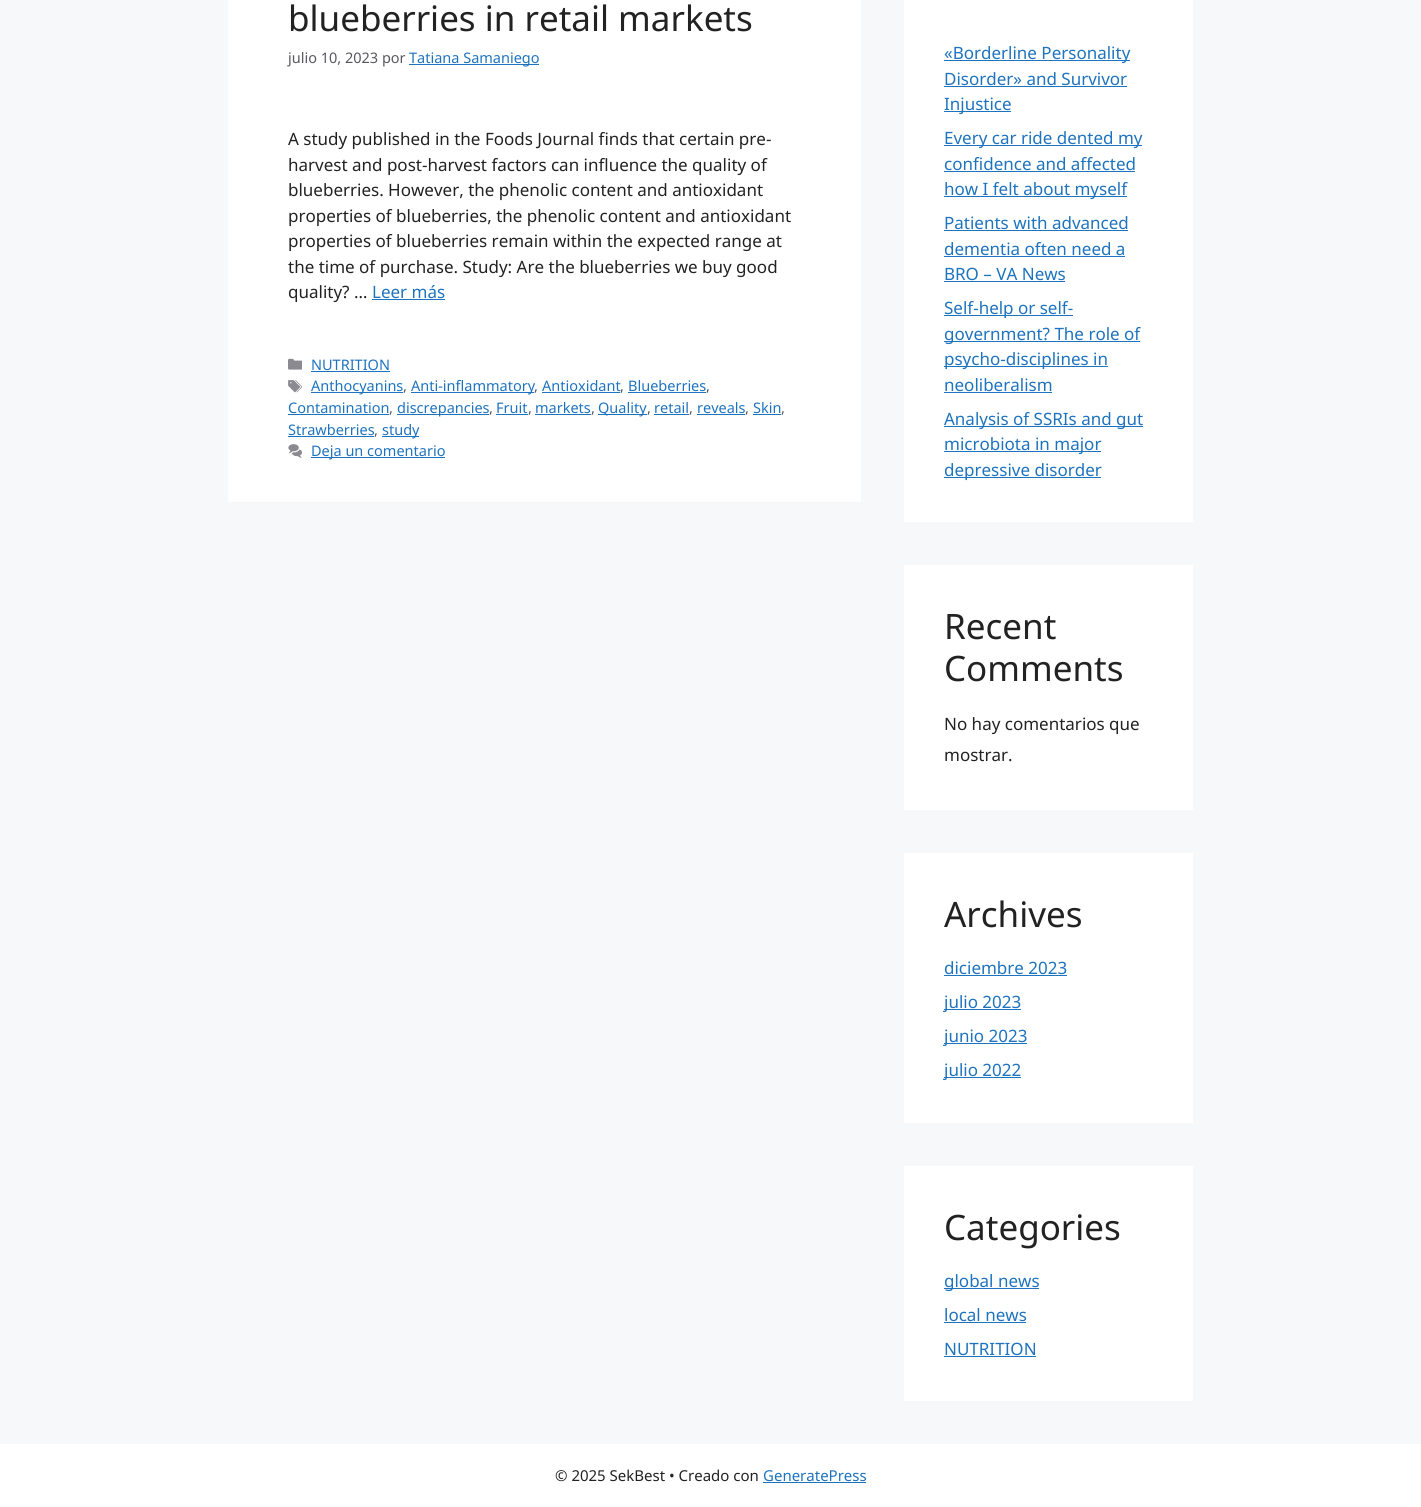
#include <cairo.h>
#include <math.h>
#include <stddef.h>

static cairo_t *c;
static void C(unsigned color){cairo_set_source_rgb(c, (color >> 16) / 255.0, (color >> 8 & 255) / 255.0, (color & 255) / 255.0);}
static void F(const char *family, double size, int italic, int bold){cairo_select_font_face(c, family, italic ? CAIRO_FONT_SLANT_ITALIC : CAIRO_FONT_SLANT_NORMAL,bold ? CAIRO_FONT_WEIGHT_BOLD : CAIRO_FONT_WEIGHT_NORMAL);cairo_set_font_size(c, size);}
static void T(double x, double y, const char *s){cairo_move_to(c, x, y);cairo_show_text(c, s);}
static void R(double x, double y, double w, double h){cairo_rectangle(c, x, y, w, h);cairo_fill(c);}
static void I(const char *path, double x, double y, double w, double h){cairo_surface_t *image = cairo_image_surface_create_from_png(path);cairo_save(c);cairo_set_source_surface(c, image, x, y);cairo_rectangle(c, x, y, w, h);cairo_fill(c);cairo_restore(c);cairo_surface_destroy(image);}
int main(void) {
cairo_surface_t *surface = cairo_image_surface_create(CAIRO_FORMAT_RGB24, 1421, 1507);
c = cairo_create(surface);
cairo_font_options_t *options = cairo_font_options_create();
cairo_font_options_set_hint_metrics(options, CAIRO_HINT_METRICS_OFF);
cairo_font_options_set_hint_style(options, CAIRO_HINT_STYLE_NONE);
cairo_set_font_options(c, options);
cairo_set_miter_limit(c, 4);
C(0xf7f8f9);
cairo_paint(c);
C(0xffffff);
R(228,0,633,502);
F("Noto Sans",35,0,0);
C(0x222222);
T(288,31,"blueberries in retail markets");
F("Noto Sans",14.5,0,0);
C(0x575760);
T(288,63,"julio 10, 2023 por");
C(0x1e73be);
R(409,64,130,1);
T(409,63,"Tatiana Samaniego");
F("Noto Sans",17,0,0);
C(0x222222);
T(288,145,"A study published in the Foods Journal finds that certain pre-");
T(288,171,"harvest and post-harvest factors can influence the quality of");
T(288,196,"blueberries. However, the phenolic content and antioxidant");
T(288,222,"properties of blueberries, the phenolic content and antioxidant");
T(288,247,"properties of blueberries remain within the expected range at");
T(288,273,"the time of purchase. Study: Are the blueberries we buy good");
T(288,298,"quality? …");
C(0x1e73be);
T(372,298,"Leer más");
R(372,299,73,1);
I("1.png",288,358,14,12);
F("Noto Sans",14.5,0,0);
T(311,370,"NUTRITION");
R(311,371,79,1);
I("2.png",288,380,14,13);
R(311,392,92,1);
T(311,391,"Anthocyanins");
C(0x575760);
T(403,391,",");
C(0x1e73be);
R(411,392,123,1);
T(411,391,"Anti-inflammatory");
C(0x575760);
T(534,391,",");
C(0x1e73be);
T(542,391,"Antioxidant");
R(542,392,78,1);
C(0x575760);
T(620,391,",");
C(0x1e73be);
T(628,391,"Blueberries");
R(628,392,78,1);
C(0x575760);
T(706,391,",");
C(0x1e73be);
T(288,413,"Contamination");
R(288,414,101,1);
C(0x575760);
T(389,413,",");
C(0x1e73be);
R(397,414,92,1);
T(397,413,"discrepancies");
C(0x575760);
T(489,413,",");
C(0x1e73be);
T(496,413,"Fruit");
R(496,414,32,1);
C(0x575760);
T(528,413,",");
C(0x1e73be);
T(535,413,"markets");
R(535,414,56,1);
C(0x575760);
T(591,413,",");
C(0x1e73be);
R(598,414,49,1);
T(598,413,"Quality");
C(0x575760);
T(647,413,",");
C(0x1e73be);
T(654,413,"retail");
R(654,414,35,1);
C(0x575760);
T(689,413,",");
C(0x1e73be);
T(697,413,"reveals");
R(697,414,48,1);
C(0x575760);
T(745,413,",");
C(0x1e73be);
T(753,413,"Skin");
R(753,414,28,1);
C(0x575760);
T(781,413,",");
C(0x1e73be);
T(288,435,"Strawberries");
R(288,436,86,1);
C(0x575760);
T(374,435,",");
C(0x1e73be);
R(382,436,37,1);
T(382,435,"study");
I("3.png",288,444,14,14);
R(311,457,134,1);
T(311,456,"Deja un comentario");
C(0xffffff);
R(904,0,289,522);
C(0x1e73be);
R(944,60,186,1);
F("Noto Sans",17,0,0);
T(944,59,"«Borderline Personality");
T(944,85,"Disorder» and Survivor");
R(944,86,183,1);
R(944,111,67,1);
T(944,110,"Injustice");
R(944,145,198,1);
T(944,144,"Every car ride dented my");
T(944,170,"confidence and affected");
R(944,171,191,1);
R(944,196,183,1);
T(944,195,"how I felt about myself");
T(944,229,"Patients with advanced");
R(944,230,184,1);
T(944,255,"dementia often need a");
R(944,256,181,1);
T(944,280,"BRO – VA News");
R(944,281,121,1);
R(944,315,129,1);
T(944,314,"Self-help or self-");
R(944,341,196,1);
T(944,340,"government? The role of");
R(944,366,164,1);
T(944,365,"psycho-disciplines in");
T(944,391,"neoliberalism");
R(944,392,108,1);
R(944,426,199,1);
T(944,425,"Analysis of SSRIs and gut");
R(944,451,157,1);
T(944,450,"microbiota in major");
R(944,477,157,1);
T(944,476,"depressive disorder");
C(0xffffff);
R(904,565,289,245);
F("Noto Sans",35,0,0);
C(0x222222);
T(944,639,"Recent");
T(944,681,"Comments");
F("Noto Sans",17,0,0);
T(944,730,"No hay comentarios que");
T(944,761,"mostrar.");
C(0xffffff);
R(904,853,289,270);
F("Noto Sans",35,0,0);
C(0x222222);
T(944,927,"Archives");
F("Noto Sans",17,0,0);
C(0x1e73be);
T(944,974,"diciembre 2023");
R(944,975,123,1);
R(944,1009,77,1);
T(944,1008,"julio 2023");
R(944,1043,83,1);
T(944,1042,"junio 2023");
R(944,1077,77,1);
T(944,1076,"julio 2022");
C(0xffffff);
R(904,1166,289,235);
F("Noto Sans",35,0,0);
C(0x222222);
T(944,1240,"Categories");
C(0x1e73be);
R(944,1288,95,1);
F("Noto Sans",17,0,0);
T(944,1287,"global news");
T(944,1321,"local news");
R(944,1322,82,1);
T(944,1355,"NUTRITION");
R(944,1356,92,1);
C(0xffffff);
R(0,1444,1421,63);
F("Noto Sans",15,0,0);
C(0x222222);
T(555,1481,"© 2025 SekBest • Creado con");
C(0x1e73be);
T(763,1481,"GeneratePress");
R(763,1482,103,1);
cairo_surface_write_to_png(surface, "o.png");
cairo_font_options_destroy(options);
cairo_destroy(c);
cairo_surface_destroy(surface);
return 0;
}
